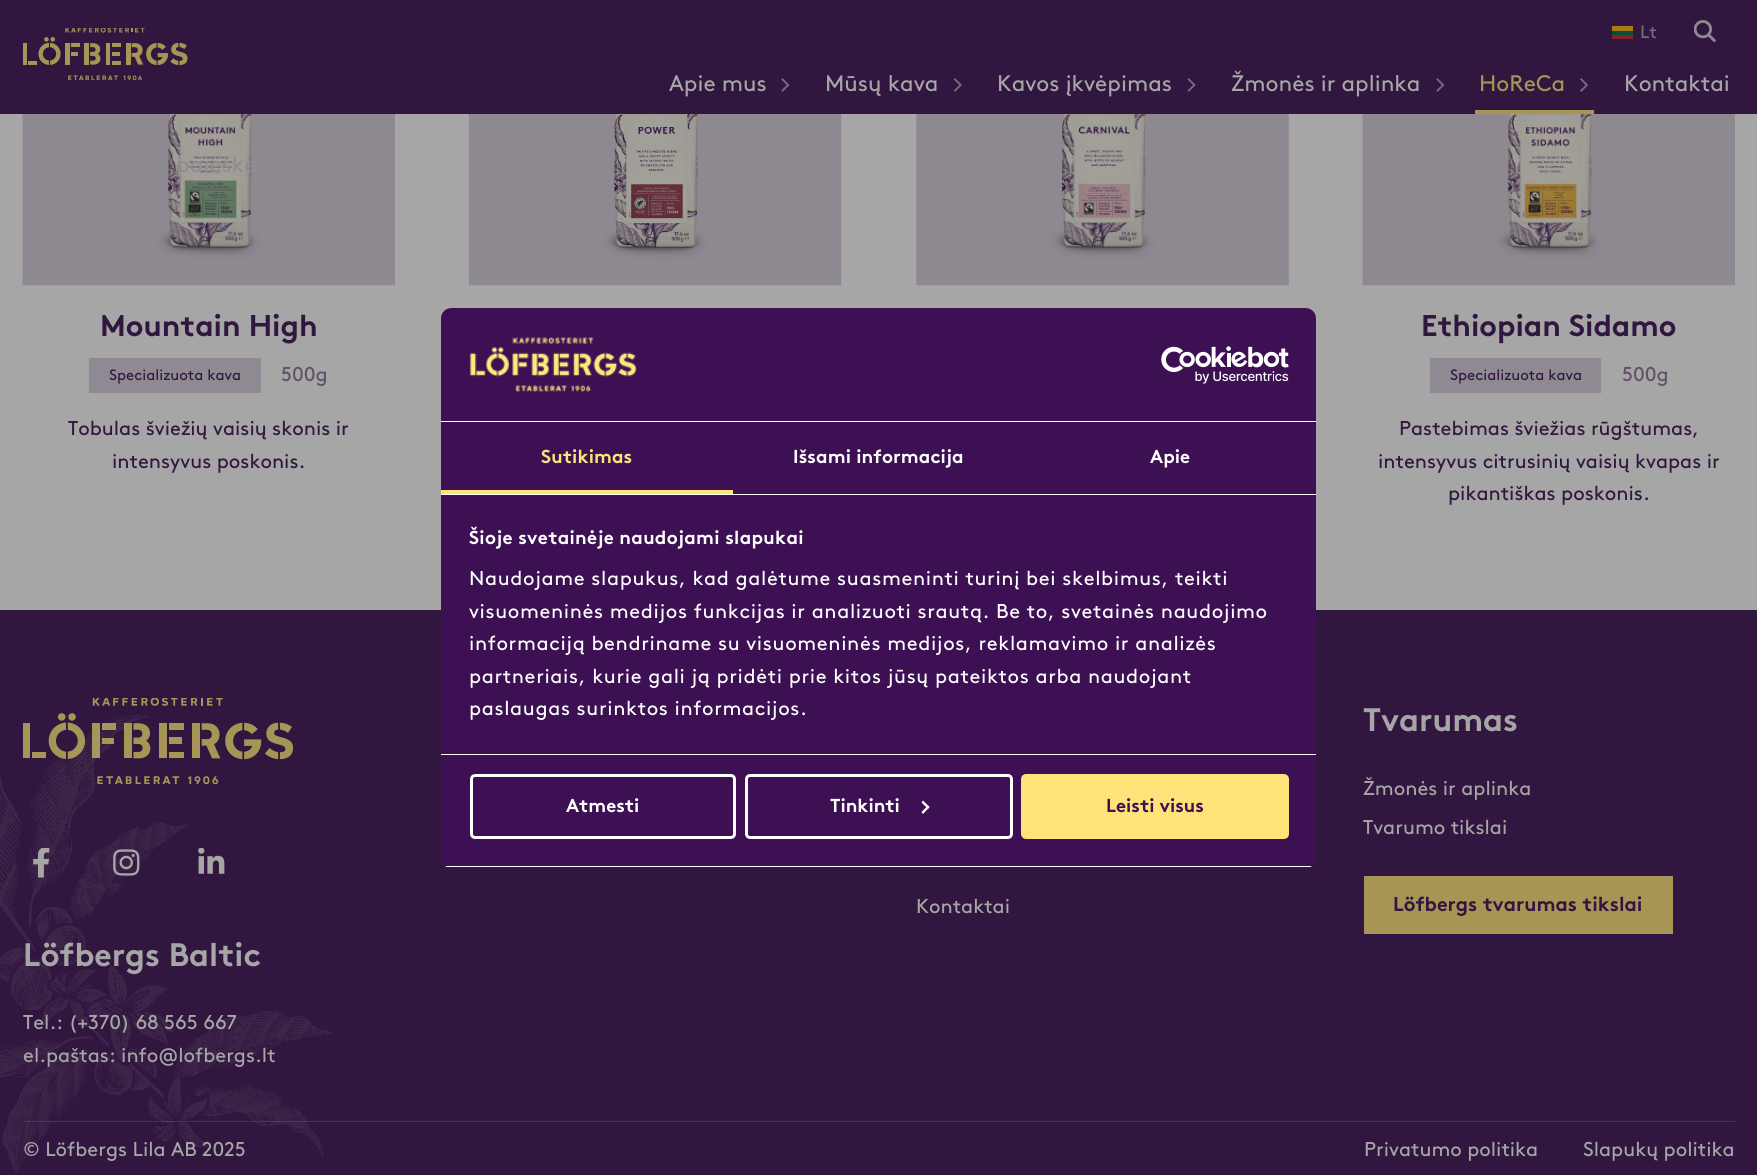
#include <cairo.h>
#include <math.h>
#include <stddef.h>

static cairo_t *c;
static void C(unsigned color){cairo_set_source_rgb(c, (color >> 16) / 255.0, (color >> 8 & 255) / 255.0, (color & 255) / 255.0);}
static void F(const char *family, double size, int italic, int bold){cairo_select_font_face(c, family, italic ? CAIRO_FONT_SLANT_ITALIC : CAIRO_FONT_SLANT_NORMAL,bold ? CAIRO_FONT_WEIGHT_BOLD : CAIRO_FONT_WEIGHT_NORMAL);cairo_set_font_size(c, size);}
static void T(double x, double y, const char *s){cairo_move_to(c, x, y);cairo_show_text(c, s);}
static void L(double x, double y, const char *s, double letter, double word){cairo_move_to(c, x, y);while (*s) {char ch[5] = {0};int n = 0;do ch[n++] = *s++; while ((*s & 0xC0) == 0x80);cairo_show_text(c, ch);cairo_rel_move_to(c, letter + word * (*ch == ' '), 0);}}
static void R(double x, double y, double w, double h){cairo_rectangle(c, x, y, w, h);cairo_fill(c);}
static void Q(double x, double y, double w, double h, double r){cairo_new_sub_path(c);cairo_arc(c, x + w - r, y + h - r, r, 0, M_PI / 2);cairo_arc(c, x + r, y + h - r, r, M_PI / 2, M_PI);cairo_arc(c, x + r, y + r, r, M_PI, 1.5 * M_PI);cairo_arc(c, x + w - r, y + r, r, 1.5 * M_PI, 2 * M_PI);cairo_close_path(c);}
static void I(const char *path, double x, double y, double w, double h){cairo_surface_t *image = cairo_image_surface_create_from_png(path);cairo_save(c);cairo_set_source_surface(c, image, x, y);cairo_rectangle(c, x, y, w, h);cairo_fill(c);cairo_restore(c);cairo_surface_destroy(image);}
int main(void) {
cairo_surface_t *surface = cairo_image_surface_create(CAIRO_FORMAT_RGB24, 1757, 1175);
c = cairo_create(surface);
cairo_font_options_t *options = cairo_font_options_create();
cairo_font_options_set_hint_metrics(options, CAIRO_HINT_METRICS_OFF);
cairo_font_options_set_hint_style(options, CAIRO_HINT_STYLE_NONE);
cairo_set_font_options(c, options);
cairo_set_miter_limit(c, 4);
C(0xffffff);
cairo_paint(c);
C(0x3c1053);
R(0,0,1757,114);
I("1.png",23,28,165,52);
C(0xc1272d);
R(1612,35,21,4);
C(0x006a44);
R(1612,31,21,4);
C(0xfdb913);
R(1612,26,21,5);
F("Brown",18,0,0);
C(0xb19fba);
T(1640,38,"Lt");
I("2.png",1694,20,22,23);
F("Brown",22.5,0,0);
C(0xffffff);
T(669,91,"Apie mus");
I("3.png",781,78,9,14);
T(825,91,"Mūsų kava");
I("4.png",953,78,9,14);
T(997,91,"Kavos įkvėpimas");
I("5.png",1187,78,9,14);
T(1231,91,"Žmonės ir aplinka");
I("3.png",1436,78,9,14);
C(0xffe378);
R(1475,110,119,4);
T(1479,91,"HoReCa");
I("6.png",1580,78,8,14);
C(0xffffff);
T(1624,91,"Kontaktai");
I("9.png",22,114,373,172);
C(0xd9d2da);
T(176,172,"paieško");
I("7.png",468,114,374,172);
I("8.png",916,114,373,172);
F("Brown",30,0,1);
C(0x3c1053);
T(100,336,"Mountain High");
C(0xd8cfdc);
R(89,358,172,35);
F("Brown",15,0,0);
C(0x3c1053);
T(109,380,"Specializuota kava");
F("Brown",20,0,0);
C(0x8a6f97);
T(281,381,"500g");
C(0x3c1053);
T(68,435,"Tobulas šviežių vaisių skonis ir");
T(112,468,"intensyvus poskonis.");
I("10.png",1362,114,373,172);
F("Brown",30,0,1);
T(1421,336,"Ethiopian Sidamo");
C(0xd8cfdc);
R(1430,358,171,35);
F("Brown",15,0,0);
C(0x3c1053);
T(1450,380,"Specializuota kava");
F("Brown",20,0,0);
C(0x8a6f97);
T(1622,381,"500g");
C(0x3c1053);
T(1399,435,"Pastebimas šviežias rūgštumas,");
T(1378,468,"intensyvus citrusinių vaisių kvapas ir");
T(1448,500,"pikantiškas poskonis.");
R(0,610,1757,565);
C(0xffffff);
T(916,913,"Kontaktai");
F("Brown",32.5,0,1);
T(1363,731,"Tvarumas");
F("Brown",20,0,0);
T(1363,795,"Žmonės ir aplinka");
T(1363,834,"Tvarumo tikslai");
C(0xffe378);
R(1364,876,309,58);
F("Brown",20,0,1);
C(0x3c1053);
T(1393,911,"Löfbergs tvarumas tikslai");
I("13.png",23,698,271,86);
I("14.png",33,848,17,30);
I("15.png",113,849,27,27);
I("16.png",198,848,27,26);
F("Brown",32.5,0,1);
C(0xffffff);
T(23,966,"Löfbergs Baltic");
F("Brown",20,0,0);
T(23,1029,"Tel.: (+370) 68 565 667");
T(23,1062,"el.paštas: info@lofbergs.lt");
C(0x633f75);
R(23,1121,1712,1);
C(0xffffff);
T(23,1156,"© Löfbergs Lila AB 2025");
I("17.png",0,715,333,458);
T(1364,1156,"Privatumo politika");
T(1583,1156,"Slapukų politika");
Q(-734,-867,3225,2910,1185);
cairo_set_source_rgba(c,0.133,0.133,0.133,0.4);
cairo_set_line_width(c,2350);
cairo_stroke(c);
C(0x3c1053);
Q(441,308,875,560,10);
cairo_fill(c);
C(0xffffff);
R(441,421,875,1);
I("11.png",469,337,168,55);
I("12.png",1161,346,128,38);
R(441,494,875,1);
C(0xffe378);
R(441,490,292,4);
F("Brown",18.75,0,1);
L(541,463,"Sutikimas",.1,0);
C(0xffffff);
L(793,463,"Išsami informacija",.1,0);
L(1150,463,"Apie",.1,0);
R(441,754,875,1);
L(469,544,"Šioje svetainėje naudojami slapukai",.3,0);
F("Brown",20,0,0);
L(469,585,"Naudojame slapukus, kad galėtume suasmeninti turinį bei skelbimus, teikti",.62,0);
L(469,618,"visuomeninės medijos funkcijas ir analizuoti srautą. Be to, svetainės naudojimo",.62,0);
L(469,650,"informaciją bendriname su visuomeninės medijos, reklamavimo ir analizės",.62,0);
L(469,683,"partneriais, kurie gali ją pridėti prie kitos jūsų pateiktos arba naudojant",.62,0);
L(469,715,"paslaugas surinktos informacijos.",.62,0);
cairo_save(c);
Q(441,308,875,560,10);
cairo_clip(c);
R(441,866,875,1);
cairo_restore(c);
Q(471.5,775.5,263,62,3.5);
cairo_set_line_width(c,3);
cairo_stroke(c);
F("Brown",18.75,0,1);
T(566,812,"Atmesti");
Q(746.5,775.5,265,62,3.5);
cairo_stroke(c);
T(830,812,"Tinkinti");
cairo_new_path(c);
cairo_move_to(c,923,800.5);
cairo_line_to(c,929.5,807);
cairo_line_to(c,928,809);
cairo_line_to(c,921.5,802.5);
cairo_close_path(c);
cairo_fill(c);
cairo_new_path(c);
cairo_move_to(c,928,805.5);
cairo_line_to(c,929.5,807);
cairo_line_to(c,923,814);
cairo_line_to(c,921.5,812);
cairo_close_path(c);
cairo_fill(c);
C(0xffe378);
Q(1022.5,775.5,265,62,3.5);
cairo_fill_preserve(c);
cairo_stroke(c);
C(0x3c1053);
T(1106,812,"Leisti visus");
cairo_surface_write_to_png(surface, "o.png");
cairo_font_options_destroy(options);
cairo_destroy(c);
cairo_surface_destroy(surface);
return 0;
}
